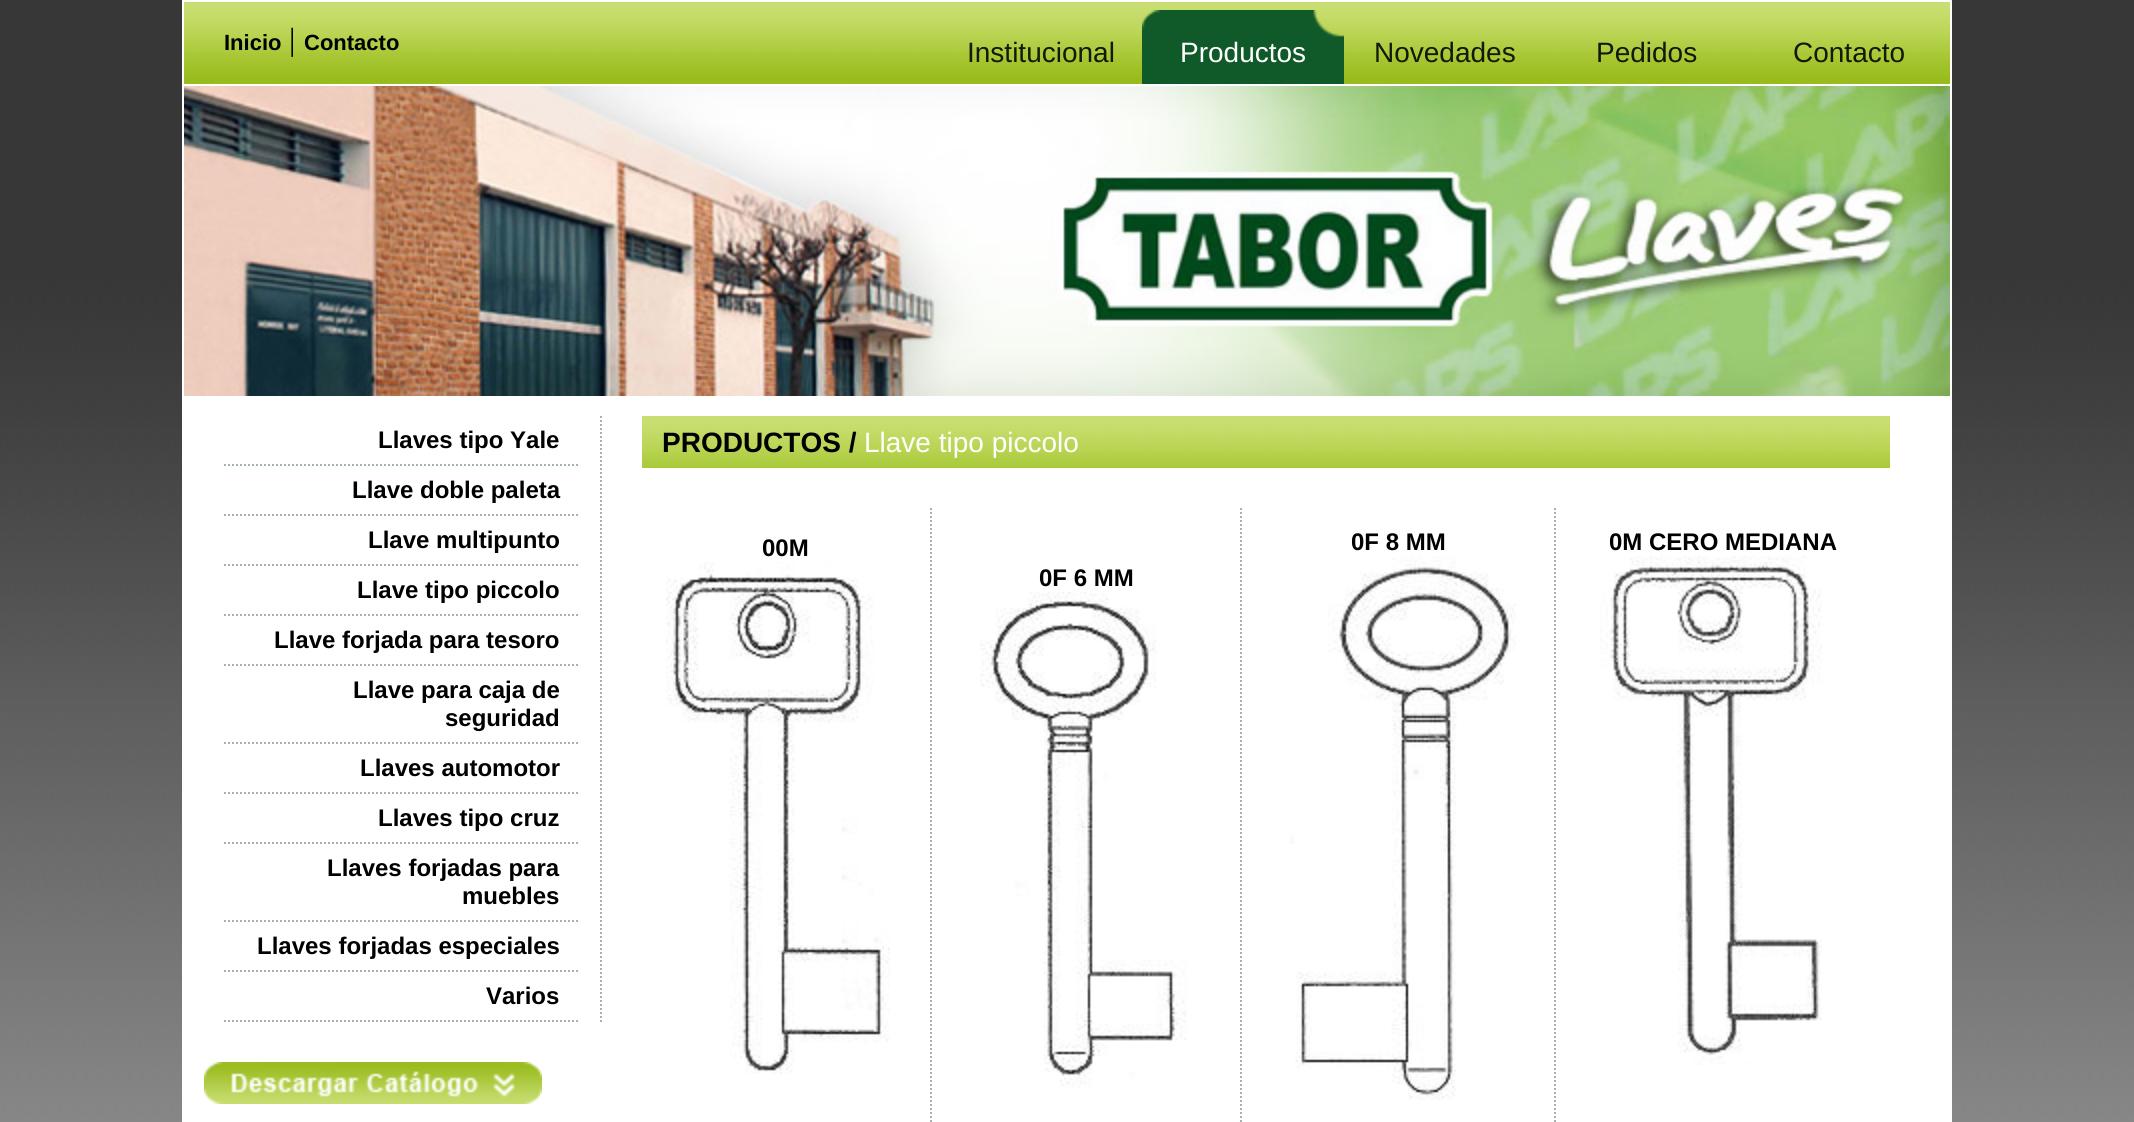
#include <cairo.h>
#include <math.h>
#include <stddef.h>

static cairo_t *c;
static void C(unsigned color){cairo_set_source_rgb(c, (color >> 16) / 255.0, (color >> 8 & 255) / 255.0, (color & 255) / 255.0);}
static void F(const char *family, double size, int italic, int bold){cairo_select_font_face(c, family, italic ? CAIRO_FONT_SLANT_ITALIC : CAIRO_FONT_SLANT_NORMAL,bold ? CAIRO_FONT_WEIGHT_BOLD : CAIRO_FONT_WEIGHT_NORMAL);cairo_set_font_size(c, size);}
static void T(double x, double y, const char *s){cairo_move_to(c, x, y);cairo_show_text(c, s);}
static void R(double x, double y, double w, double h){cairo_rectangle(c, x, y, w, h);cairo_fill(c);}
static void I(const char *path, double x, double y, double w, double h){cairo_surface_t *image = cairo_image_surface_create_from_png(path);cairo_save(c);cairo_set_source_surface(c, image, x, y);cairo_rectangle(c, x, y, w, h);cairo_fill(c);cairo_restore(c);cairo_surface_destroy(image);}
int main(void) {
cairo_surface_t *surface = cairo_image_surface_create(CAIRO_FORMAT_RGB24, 2134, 1122);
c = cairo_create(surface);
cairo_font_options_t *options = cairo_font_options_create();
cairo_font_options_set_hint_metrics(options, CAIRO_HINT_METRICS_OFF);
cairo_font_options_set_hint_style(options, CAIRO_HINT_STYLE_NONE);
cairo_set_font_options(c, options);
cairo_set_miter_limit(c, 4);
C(0xffffff);
cairo_paint(c);
I("1.png",0,0,2134,1122);
C(0xffffff);
R(182,0,1770,1122);
I("2.png",184,2,1766,82);
F("Liberation Sans",22,0,1);
C(0x000000);
T(224,50,"Inicio");
F("Liberation Serif",32,0,0);
T(289,50,"|");
F("Liberation Sans",22,0,1);
T(304,50,"Contacto");
F("Liberation Sans",28,0,0);
C(0x121907);
T(967,62,"Institucional");
I("3.png",1142,10,202,74);
C(0xffffff);
T(1180,62,"Productos");
C(0x121907);
T(1374,62,"Novedades");
T(1596,62,"Pedidos");
T(1793,62,"Contacto");
I("4.png",184,86,1766,310);
cairo_new_path(c);
cairo_move_to(c,601,416);
cairo_line_to(c,601,1022);
C(0xa5b3ae);
cairo_set_dash(c,(double[]){2,2},2,0);
cairo_stroke(c);
cairo_new_path(c);
cairo_move_to(c,224,465);
cairo_line_to(c,580,465);
cairo_stroke(c);
F("Liberation Sans",24,0,1);
C(0x000000);
T(378,448,"Llaves tipo Yale");
cairo_new_path(c);
cairo_move_to(c,224,515);
cairo_line_to(c,580,515);
C(0xa5b3ae);
cairo_stroke(c);
C(0x000000);
T(352,498,"Llave doble paleta");
cairo_new_path(c);
cairo_move_to(c,224,565);
cairo_line_to(c,580,565);
C(0xa5b3ae);
cairo_stroke(c);
C(0x000000);
T(368,548,"Llave multipunto");
cairo_new_path(c);
cairo_move_to(c,224,615);
cairo_line_to(c,580,615);
C(0xa5b3ae);
cairo_stroke(c);
C(0x000000);
T(357,598,"Llave tipo piccolo");
cairo_new_path(c);
cairo_move_to(c,224,665);
cairo_line_to(c,580,665);
C(0xa5b3ae);
cairo_stroke(c);
C(0x000000);
T(274,648,"Llave forjada para tesoro");
cairo_new_path(c);
cairo_move_to(c,224,743);
cairo_line_to(c,580,743);
C(0xa5b3ae);
cairo_stroke(c);
C(0x000000);
T(353,698,"Llave para caja de");
T(445,726,"seguridad");
cairo_new_path(c);
cairo_move_to(c,224,793);
cairo_line_to(c,580,793);
C(0xa5b3ae);
cairo_stroke(c);
C(0x000000);
T(360,776,"Llaves automotor");
cairo_new_path(c);
cairo_move_to(c,224,843);
cairo_line_to(c,580,843);
C(0xa5b3ae);
cairo_stroke(c);
C(0x000000);
T(378,826,"Llaves tipo cruz");
cairo_new_path(c);
cairo_move_to(c,224,921);
cairo_line_to(c,580,921);
C(0xa5b3ae);
cairo_stroke(c);
C(0x000000);
T(327,876,"Llaves forjadas para");
T(462,904,"muebles");
cairo_new_path(c);
cairo_move_to(c,224,971);
cairo_line_to(c,580,971);
C(0xa5b3ae);
cairo_stroke(c);
C(0x000000);
T(257,954,"Llaves forjadas especiales");
cairo_new_path(c);
cairo_move_to(c,224,1021);
cairo_line_to(c,580,1021);
C(0xa5b3ae);
cairo_stroke(c);
C(0x000000);
T(486,1004,"Varios");
I("5.png",204,1062,338,42);
I("6.png",642,416,1248,52);
F("Liberation Sans",28,0,1);
T(662,452,"PRODUCTOS /");
F("Liberation Sans",28,0,0);
C(0xffffff);
T(864,452,"Llave tipo piccolo");
cairo_new_path(c);
cairo_move_to(c,931,508);
cairo_line_to(c,931,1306);
C(0xa5b3ae);
cairo_stroke(c);
F("Liberation Sans",24,0,1);
C(0x000000);
T(762,556,"00M");
I("7.png",666,562,224,512);
cairo_new_path(c);
cairo_move_to(c,1555,508);
cairo_line_to(c,1555,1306);
C(0xa5b3ae);
cairo_stroke(c);
C(0x000000);
T(1351,550,"0F 8 MM");
I("8.png",1289,556,227,544);
T(1609,550,"0M CERO MEDIANA");
I("9.png",1600,556,222,509);
cairo_new_path(c);
cairo_move_to(c,1241,508);
cairo_line_to(c,1241,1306);
C(0xa5b3ae);
cairo_stroke(c);
C(0x000000);
T(1039,586,"0F 6 MM");
I("10.png",980,592,207,496);
cairo_surface_write_to_png(surface, "o.png");
cairo_font_options_destroy(options);
cairo_destroy(c);
cairo_surface_destroy(surface);
return 0;
}
